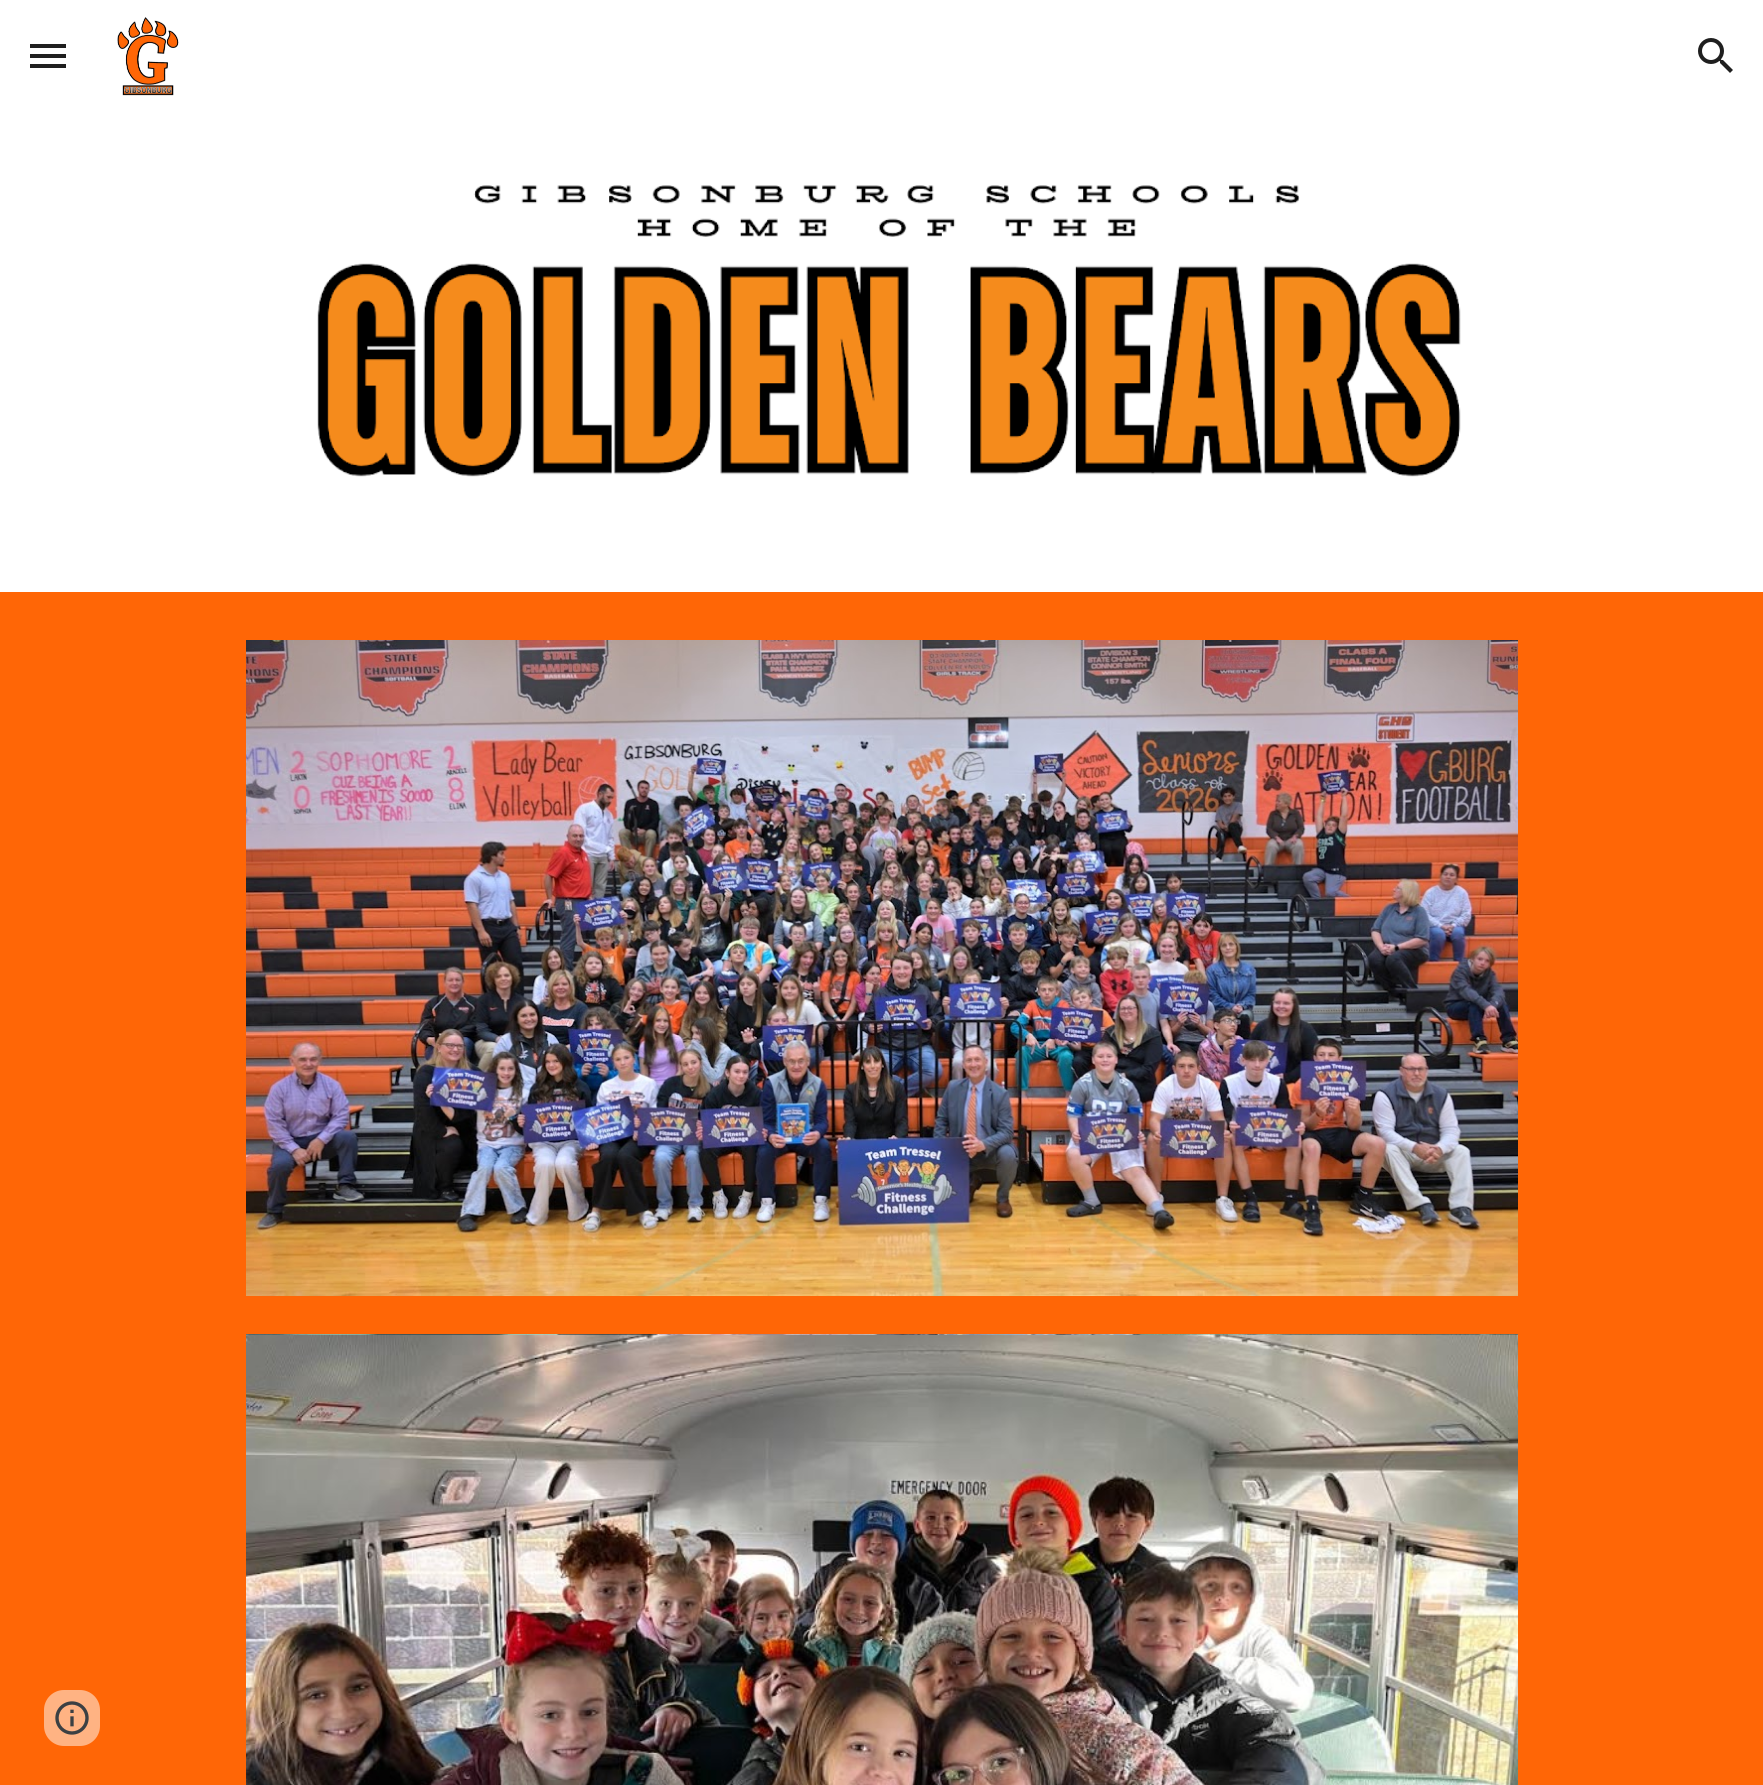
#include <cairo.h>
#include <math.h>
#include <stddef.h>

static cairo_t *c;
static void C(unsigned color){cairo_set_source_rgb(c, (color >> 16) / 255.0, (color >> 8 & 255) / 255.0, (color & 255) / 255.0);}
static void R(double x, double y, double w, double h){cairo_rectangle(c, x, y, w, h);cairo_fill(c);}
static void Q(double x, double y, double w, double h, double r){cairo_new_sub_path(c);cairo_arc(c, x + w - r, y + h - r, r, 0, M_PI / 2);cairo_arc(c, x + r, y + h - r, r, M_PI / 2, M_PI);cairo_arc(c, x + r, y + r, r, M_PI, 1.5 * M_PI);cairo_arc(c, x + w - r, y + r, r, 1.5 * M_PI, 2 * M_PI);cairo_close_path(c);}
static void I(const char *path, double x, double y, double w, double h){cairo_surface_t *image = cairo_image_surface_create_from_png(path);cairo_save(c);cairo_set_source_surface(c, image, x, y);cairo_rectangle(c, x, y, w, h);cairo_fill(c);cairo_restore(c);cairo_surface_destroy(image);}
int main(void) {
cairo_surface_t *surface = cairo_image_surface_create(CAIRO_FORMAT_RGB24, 1763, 1785);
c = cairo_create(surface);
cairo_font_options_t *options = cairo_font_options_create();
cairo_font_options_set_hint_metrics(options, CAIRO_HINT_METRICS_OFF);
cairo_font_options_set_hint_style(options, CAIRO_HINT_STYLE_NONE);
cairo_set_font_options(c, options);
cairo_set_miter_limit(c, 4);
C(0xffffff);
cairo_paint(c);
C(0x1f1f1f);
R(30,44,36,4);
R(30,54,36,4);
R(30,64,36,4);
I("1.png",117,17,62,79);
I("2.png",1698,38,35,35);
I("3.png",317,185,1144,292);
C(0xff6606);
R(0,592,1763,1193);
I("4.png",246,640,1272,656);
I("5.png",246,1334,1272,451);
C(0xffb383);
Q(44,1690,56,56,20);
cairo_fill(c);
I("6.png",55,1701,34,34);
cairo_surface_write_to_png(surface, "o.png");
cairo_font_options_destroy(options);
cairo_destroy(c);
cairo_surface_destroy(surface);
return 0;
}
